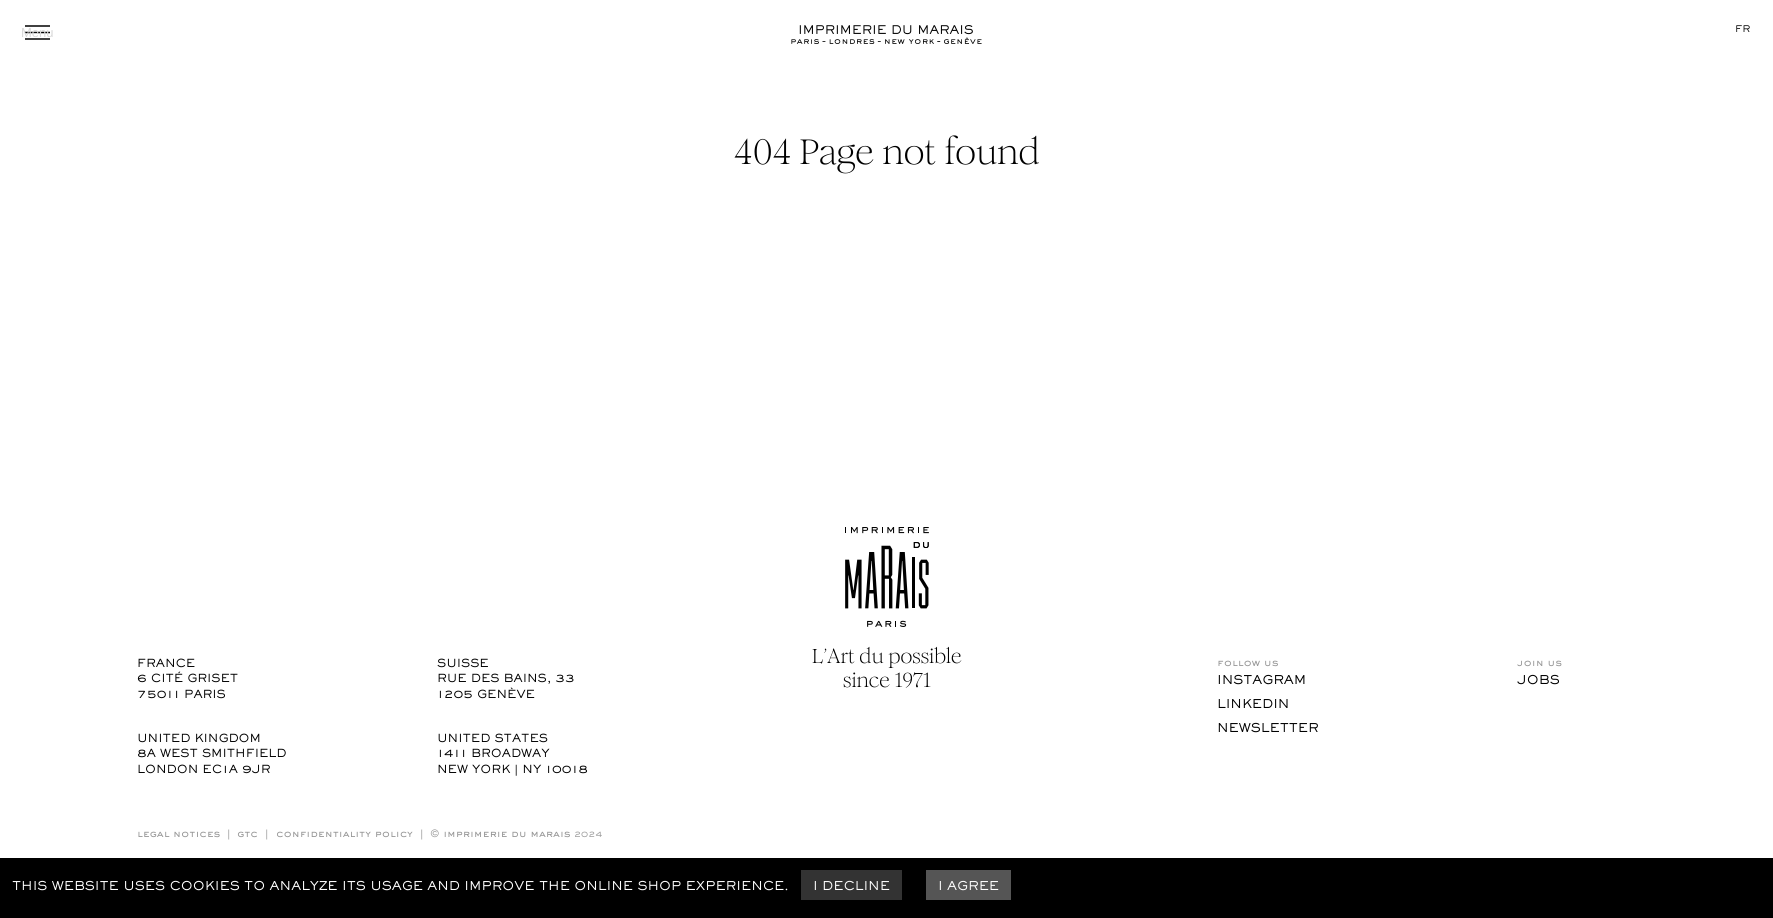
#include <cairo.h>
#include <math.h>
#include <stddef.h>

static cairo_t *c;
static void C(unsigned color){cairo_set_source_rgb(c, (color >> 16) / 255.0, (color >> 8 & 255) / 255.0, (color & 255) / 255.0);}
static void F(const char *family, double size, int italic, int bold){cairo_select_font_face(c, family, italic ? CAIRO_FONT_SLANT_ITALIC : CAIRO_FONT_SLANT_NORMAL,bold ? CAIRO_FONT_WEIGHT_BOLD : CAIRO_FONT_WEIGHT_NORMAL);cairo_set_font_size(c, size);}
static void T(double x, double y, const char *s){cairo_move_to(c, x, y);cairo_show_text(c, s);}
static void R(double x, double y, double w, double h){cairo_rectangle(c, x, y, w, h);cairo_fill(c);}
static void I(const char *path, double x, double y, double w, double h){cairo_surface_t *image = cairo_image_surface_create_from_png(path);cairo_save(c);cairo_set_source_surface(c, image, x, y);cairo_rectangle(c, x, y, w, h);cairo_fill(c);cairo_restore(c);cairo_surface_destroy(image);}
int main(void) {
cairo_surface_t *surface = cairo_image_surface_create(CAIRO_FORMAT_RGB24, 1773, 918);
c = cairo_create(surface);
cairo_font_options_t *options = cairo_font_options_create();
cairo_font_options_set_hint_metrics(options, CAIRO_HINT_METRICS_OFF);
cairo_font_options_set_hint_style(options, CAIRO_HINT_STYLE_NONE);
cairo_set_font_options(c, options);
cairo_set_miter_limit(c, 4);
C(0xffffff);
cairo_paint(c);
C(0x404040);
R(25,25,25,2);
cairo_new_path(c);
cairo_move_to(c,25,32.5);
cairo_line_to(c,50,32.5);
C(0x000000);
cairo_set_line_width(c,1.5);
cairo_stroke(c);
C(0x404040);
R(25,38,25,2);
F("Liberation Sans",13,0,0);
C(0xd8d8d8);
T(21,37,"Menu");
I("1.png",791,25,191,19);
F("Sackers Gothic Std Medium",9,0,0);
C(0x000000);
T(1735,32,"FR");
F("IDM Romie",35,0,0);
T(734,164,"404 Page not found");
F("Sackers Gothic Std Medium",11,0,0);
T(137,667,"FRANCE");
T(137,682,"6 CITÉ GRISET");
T(137,698,"75011 PARIS");
T(437,667,"SUISSE");
T(437,682,"RUE DES BAINS, 33");
T(437,698,"1205 GENÈVE");
T(137,742,"UNITED KINGDOM");
T(137,757,"8A WEST SMITHFIELD");
T(137,773,"LONDON EC1A 9JR");
T(437,742,"UNITED STATES");
T(437,757,"1411 BROADWAY");
T(437,773,"NEW YORK | NY 10018");
I("2.png",845,527,84,100);
F("IDM Romie",20,0,0);
T(812,663,"L’Art du possible");
T(843,687,"since 1971");
F("Sackers Gothic Std Medium",10,0,0);
C(0x969696);
T(1217,666,"follow us");
F("Sackers Gothic Std Medium",12,0,0);
C(0x000000);
T(1217,684,"INSTAGRAM");
T(1217,708,"LINKEDIN");
T(1217,732,"NEWSLETTER");
F("Sackers Gothic Std Medium",10,0,0);
C(0x969696);
T(1517,666,"join us");
F("Sackers Gothic Std Medium",12,0,0);
C(0x000000);
T(1517,684,"JOBS");
F("Sackers Gothic Std Medium",10,0,0);
C(0x969696);
T(137,837,"legal notices");
T(227,837,"|");
T(237,837,"gtc");
T(265,837,"|");
T(276,837,"confidentiality policy");
T(420,837,"|");
T(430,837,"© imprimerie du marais");
F("Sackers Gothic Std Medium",8,0,0);
T(574,837,"2024");
C(0x000000);
R(0,858,1773,60);
F("Sackers Gothic Std Medium",12,0,0);
C(0xffffff);
T(12,890,"THIS WEBSITE USES COOKIES TO ANALYZE ITS USAGE AND IMPROVE THE ONLINE SHOP EXPERIENCE.");
C(0x333333);
R(801,870,101,30);
C(0xffffff);
T(813,890,"I DECLINE");
C(0x555555);
R(926,870,85,30);
C(0xffffff);
T(938,890,"I AGREE");
cairo_surface_write_to_png(surface, "o.png");
cairo_font_options_destroy(options);
cairo_destroy(c);
cairo_surface_destroy(surface);
return 0;
}
